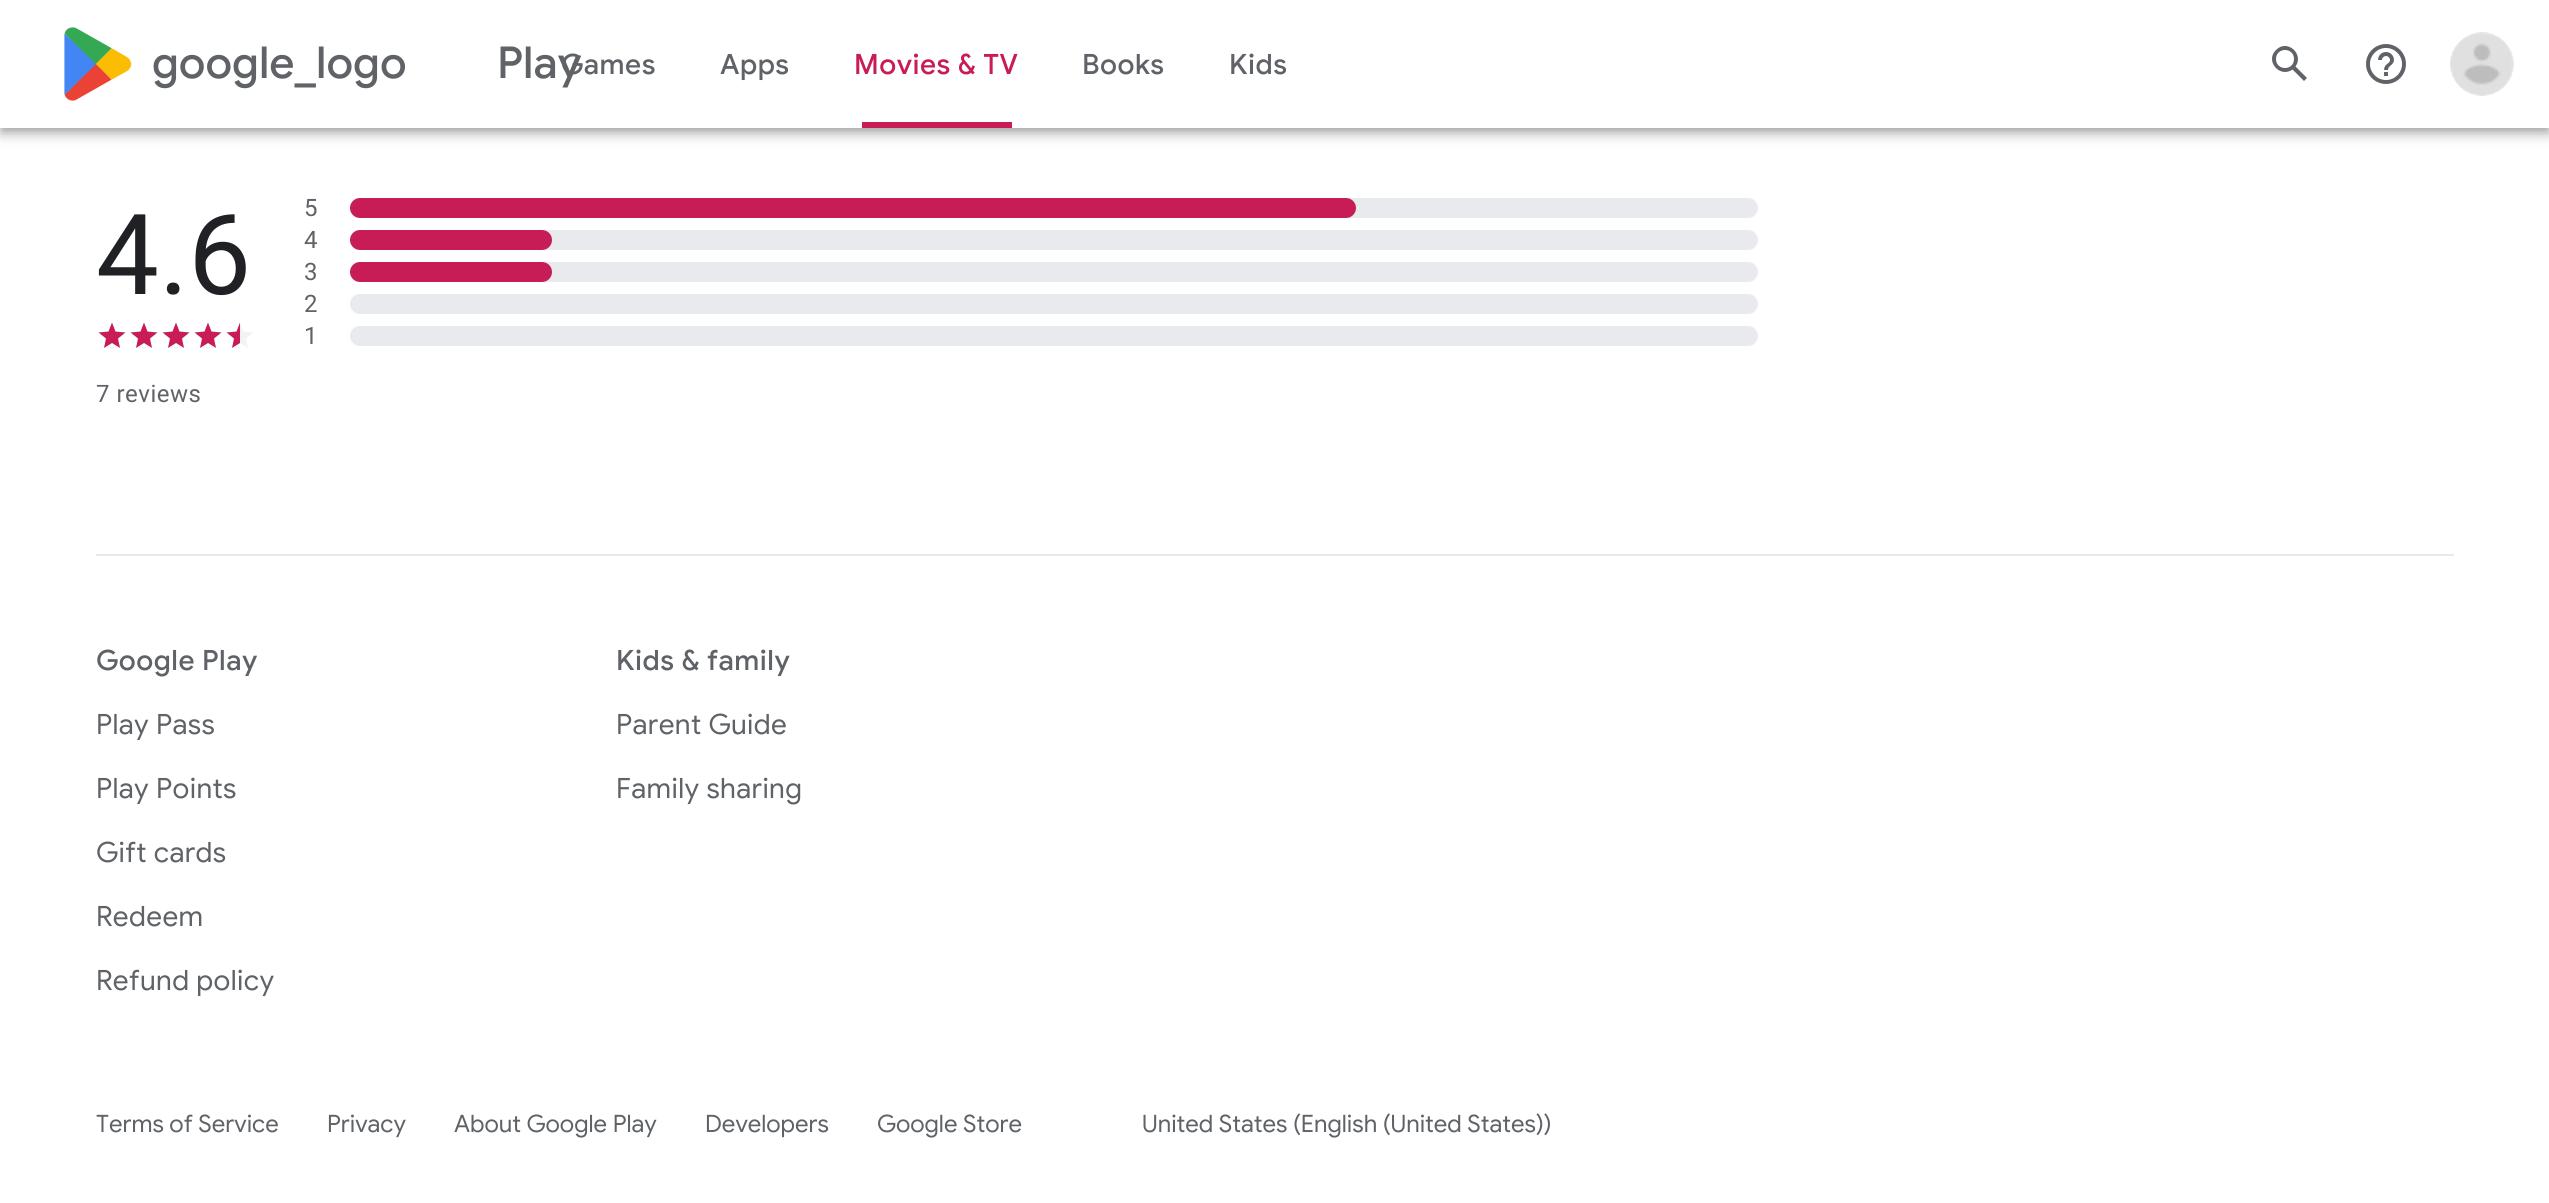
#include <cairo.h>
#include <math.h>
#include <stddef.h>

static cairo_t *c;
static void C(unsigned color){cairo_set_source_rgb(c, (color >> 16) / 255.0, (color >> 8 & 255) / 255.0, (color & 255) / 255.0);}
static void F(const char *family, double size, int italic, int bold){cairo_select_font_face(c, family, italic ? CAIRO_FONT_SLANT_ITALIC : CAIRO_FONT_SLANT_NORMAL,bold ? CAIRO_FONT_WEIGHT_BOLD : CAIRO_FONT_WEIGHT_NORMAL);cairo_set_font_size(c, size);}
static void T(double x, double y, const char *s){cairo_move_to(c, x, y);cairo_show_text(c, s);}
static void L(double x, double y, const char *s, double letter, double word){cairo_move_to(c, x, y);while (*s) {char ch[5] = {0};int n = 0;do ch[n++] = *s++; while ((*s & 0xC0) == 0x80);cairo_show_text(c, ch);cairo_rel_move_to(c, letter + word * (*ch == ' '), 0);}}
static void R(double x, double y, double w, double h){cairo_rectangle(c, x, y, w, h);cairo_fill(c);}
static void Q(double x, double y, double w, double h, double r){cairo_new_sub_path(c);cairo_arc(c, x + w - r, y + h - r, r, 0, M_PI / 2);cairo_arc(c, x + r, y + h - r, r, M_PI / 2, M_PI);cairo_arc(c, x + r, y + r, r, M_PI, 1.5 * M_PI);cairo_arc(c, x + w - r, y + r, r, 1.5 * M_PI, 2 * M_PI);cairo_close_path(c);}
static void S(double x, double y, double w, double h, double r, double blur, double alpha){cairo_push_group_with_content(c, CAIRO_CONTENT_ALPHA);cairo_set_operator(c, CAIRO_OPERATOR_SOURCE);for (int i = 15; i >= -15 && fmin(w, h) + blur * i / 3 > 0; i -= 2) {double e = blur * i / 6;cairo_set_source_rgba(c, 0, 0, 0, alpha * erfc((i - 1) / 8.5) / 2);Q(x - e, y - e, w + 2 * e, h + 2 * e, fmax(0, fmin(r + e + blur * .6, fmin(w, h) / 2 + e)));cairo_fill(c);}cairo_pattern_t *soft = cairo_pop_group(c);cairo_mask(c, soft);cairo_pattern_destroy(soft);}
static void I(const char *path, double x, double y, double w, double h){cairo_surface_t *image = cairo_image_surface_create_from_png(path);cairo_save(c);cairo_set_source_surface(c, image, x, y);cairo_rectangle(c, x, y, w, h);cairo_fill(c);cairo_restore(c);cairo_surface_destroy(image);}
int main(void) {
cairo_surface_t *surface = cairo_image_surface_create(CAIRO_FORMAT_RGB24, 2549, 1203);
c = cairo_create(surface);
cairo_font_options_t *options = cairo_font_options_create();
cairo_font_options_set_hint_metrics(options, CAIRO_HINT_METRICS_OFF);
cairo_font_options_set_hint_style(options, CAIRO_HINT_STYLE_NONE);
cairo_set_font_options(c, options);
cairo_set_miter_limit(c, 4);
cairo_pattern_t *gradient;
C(0xffffff);
cairo_paint(c);
C(0x000000);
S(2,6,2546,124,0,4,.2);
S(0,2,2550,128,0,10,.12);
S(0,8,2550,128,0,5,.14);
C(0xffffff);
R(0,0,2549,128);
I("1.png",64,27,68,74);
F("Google Sans Medium",44,0,0);
C(0x5f6368);
L(152,78,"google_logo",0,110);
L(497,78,"Play",0,110);
F("Google Sans Medium",28,0,0);
L(561,74,"Games",.5,0);
L(720,74,"Apps",.5,0);
C(0xc71c56);
L(854,74,"Movies & TV",.5,0);
R(862,122,150,6);
C(0x5f6368);
L(1082,74,"Books",.5,0);
L(1229,74,"Kids",.5,0);
cairo_new_path(c);
cairo_move_to(c,2307,78);
cairo_line_to(c,2295.5,66.5);
cairo_curve_to(c,2304.5,54,2287,38.5,2276,50);
cairo_curve_to(c,2264.5,61,2280,78.5,2292.5,69.5);
cairo_line_to(c,2304,81);
cairo_close_path(c);
cairo_move_to(c,2276,59);
cairo_curve_to(c,2276,47,2294,47,2294,59);
cairo_curve_to(c,2294,71,2276,71,2276,59);
cairo_close_path(c);
cairo_fill(c);
I("2.png",2366,44,40,40);
I("3.png",2450,32,64,64);
F("Roboto",112,0,0);
C(0x202124);
T(96,294,"4.6");
C(0xc71c56);
cairo_new_path(c);
cairo_move_to(c,112,343);
cairo_line_to(c,120,348);
cairo_line_to(c,118,338.5);
cairo_line_to(c,125.5,332.5);
cairo_line_to(c,115.5,331.5);
cairo_line_to(c,112,322.5);
cairo_line_to(c,108.5,331.5);
cairo_line_to(c,98.5,332.5);
cairo_line_to(c,106,338.5);
cairo_line_to(c,104,348);
cairo_close_path(c);
cairo_move_to(c,144,343);
cairo_line_to(c,152,348);
cairo_line_to(c,150,338.5);
cairo_line_to(c,157.5,332.5);
cairo_line_to(c,147.5,331.5);
cairo_line_to(c,144,322.5);
cairo_line_to(c,140.5,331.5);
cairo_line_to(c,130.5,332.5);
cairo_line_to(c,138,338.5);
cairo_line_to(c,136,348);
cairo_close_path(c);
cairo_fill(c);
cairo_new_path(c);
cairo_move_to(c,176,343);
cairo_line_to(c,184,348);
cairo_line_to(c,182,338.5);
cairo_line_to(c,189.5,332.5);
cairo_line_to(c,179.5,331.5);
cairo_line_to(c,176,322.5);
cairo_line_to(c,172.5,331.5);
cairo_line_to(c,162.5,332.5);
cairo_line_to(c,170,338.5);
cairo_line_to(c,168,348);
cairo_close_path(c);
cairo_move_to(c,208,343);
cairo_line_to(c,216,348);
cairo_line_to(c,214,338.5);
cairo_line_to(c,221.5,332.5);
cairo_line_to(c,211.5,331.5);
cairo_line_to(c,208,322.5);
cairo_line_to(c,204.5,331.5);
cairo_line_to(c,194.5,332.5);
cairo_line_to(c,202,338.5);
cairo_line_to(c,200,348);
cairo_close_path(c);
cairo_fill(c);
gradient = cairo_pattern_create_linear(227,323,253,323);
cairo_pattern_add_color_stop_rgba(gradient,.5,0.78,0.11,0.337,1);
cairo_pattern_add_color_stop_rgba(gradient,.5,0.945,0.953,0.957,1);
cairo_set_source(c,gradient);
cairo_pattern_destroy(gradient);
cairo_new_path(c);
cairo_move_to(c,240,343);
cairo_line_to(c,248,348);
cairo_line_to(c,246,338.5);
cairo_line_to(c,253.5,332.5);
cairo_line_to(c,243.5,331.5);
cairo_line_to(c,240,322.5);
cairo_line_to(c,236.5,331.5);
cairo_line_to(c,226.5,332.5);
cairo_line_to(c,234,338.5);
cairo_line_to(c,232,348);
cairo_close_path(c);
cairo_fill(c);
F("Roboto",24,0,0);
C(0x5f6368);
L(96,402,"7 reviews",.5,0);
L(304,216,"5",.5,0);
C(0xe8eaed);
Q(350,198,1408,20,10);
cairo_fill(c);
C(0xc71c56);
Q(350,198,1006,20,10);
cairo_fill(c);
C(0x5f6368);
L(304,248,"4",.5,0);
C(0xe8eaed);
Q(350,230,1408,20,10);
cairo_fill(c);
C(0xc71c56);
Q(350,230,202,20,10);
cairo_fill(c);
C(0x5f6368);
L(304,280,"3",.5,0);
C(0xe8eaed);
Q(350,262,1408,20,10);
cairo_fill(c);
C(0xc71c56);
Q(350,262,202,20,10);
cairo_fill(c);
C(0x5f6368);
L(304,312,"2",.5,0);
C(0xe8eaed);
Q(350,294,1408,20,10);
cairo_fill(c);
C(0x5f6368);
L(304,344,"1",.5,0);
C(0xe8eaed);
Q(350,326,1408,20,10);
cairo_fill(c);
R(96,554,2358,2);
F("Google Sans Medium",28,0,0);
C(0x5f6368);
L(96,670,"Google Play",.5,0);
F("Google Sans",28,0,0);
L(96,734,"Play Pass",.4,0);
L(96,798,"Play Points",.4,0);
L(96,862,"Gift cards",.4,0);
L(96,926,"Redeem",.4,0);
L(96,990,"Refund policy",.4,0);
F("Google Sans Medium",28,0,0);
L(616,670,"Kids & family",.5,0);
F("Google Sans",28,0,0);
L(616,734,"Parent Guide",.4,0);
L(616,798,"Family sharing",.4,0);
F("Google Sans",24,0,0);
T(96,1132,"Terms of Service");
T(327,1132,"Privacy");
T(454,1132,"About Google Play");
T(705,1132,"Developers");
T(877,1132,"Google Store");
T(1142,1132,"United States (English (United States))");
cairo_surface_write_to_png(surface, "o.png");
cairo_font_options_destroy(options);
cairo_destroy(c);
cairo_surface_destroy(surface);
return 0;
}
